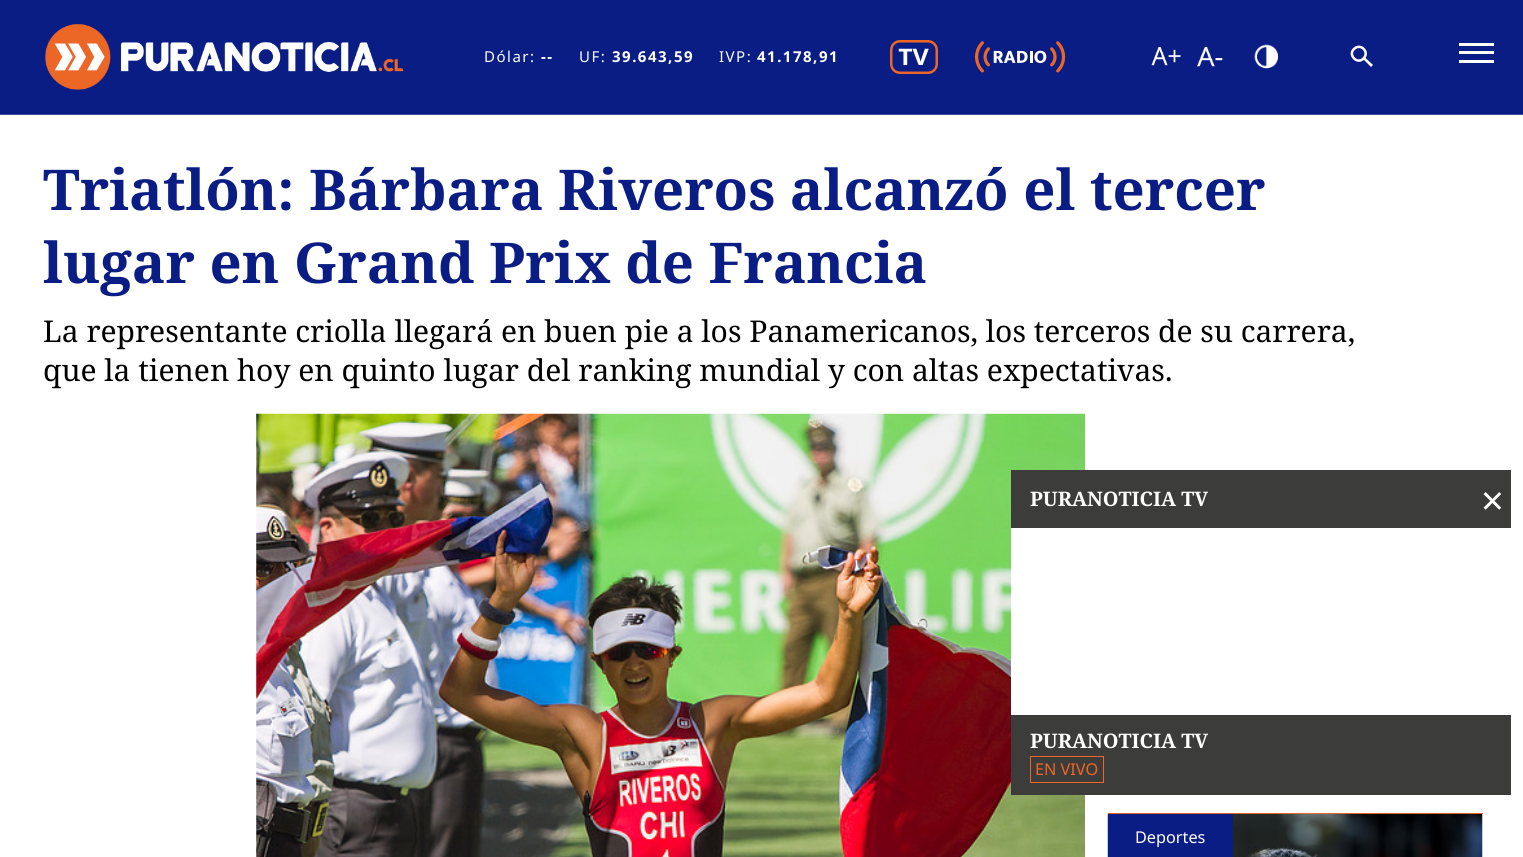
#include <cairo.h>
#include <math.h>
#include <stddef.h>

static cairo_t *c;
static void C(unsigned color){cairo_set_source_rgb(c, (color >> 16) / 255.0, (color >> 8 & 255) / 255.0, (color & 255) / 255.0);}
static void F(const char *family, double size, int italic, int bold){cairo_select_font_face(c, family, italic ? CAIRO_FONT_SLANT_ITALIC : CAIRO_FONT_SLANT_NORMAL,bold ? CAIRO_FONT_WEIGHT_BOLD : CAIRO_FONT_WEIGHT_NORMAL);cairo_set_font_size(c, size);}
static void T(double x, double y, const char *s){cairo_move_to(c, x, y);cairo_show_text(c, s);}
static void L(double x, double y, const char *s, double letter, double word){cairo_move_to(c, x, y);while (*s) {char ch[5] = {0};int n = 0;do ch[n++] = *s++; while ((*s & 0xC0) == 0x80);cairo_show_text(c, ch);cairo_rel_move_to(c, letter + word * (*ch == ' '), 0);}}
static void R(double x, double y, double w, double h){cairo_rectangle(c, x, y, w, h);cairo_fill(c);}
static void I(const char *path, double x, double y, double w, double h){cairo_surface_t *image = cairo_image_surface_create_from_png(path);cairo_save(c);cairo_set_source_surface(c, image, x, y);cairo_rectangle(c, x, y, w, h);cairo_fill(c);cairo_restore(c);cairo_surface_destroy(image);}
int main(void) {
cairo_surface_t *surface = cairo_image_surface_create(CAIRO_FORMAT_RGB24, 1523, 857);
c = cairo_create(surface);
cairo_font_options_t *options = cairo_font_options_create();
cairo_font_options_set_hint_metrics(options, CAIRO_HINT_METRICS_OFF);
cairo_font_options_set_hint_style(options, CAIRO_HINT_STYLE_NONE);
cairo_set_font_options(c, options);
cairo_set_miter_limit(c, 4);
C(0xffffff);
cairo_paint(c);
C(0x0a1d85);
R(0,0,1523,114);
C(0x3b4a9d);
R(0,114,1523,1);
I("1.png",45,24,359,66);
F("Noto Sans",15,0,0);
C(0xffffff);
L(484,62,"Dólar:",1.5,0);
F("Noto Sans",15,0,1);
L(541,62,"--",1.5,0);
F("Noto Sans",15,0,0);
L(579,62,"UF:",1.5,0);
F("Noto Sans",15,0,1);
L(612,62,"39.643,59",1.5,0);
F("Noto Sans",15,0,0);
L(719,62,"IVP:",1.5,0);
F("Noto Sans",15,0,1);
L(757,62,"41.178,91",1.5,0);
I("2.png",890,40,48,34);
I("3.png",975,41,91,32);
I("4.png",1151,47,30,19);
I("5.png",1197,47,26,20);
I("6.png",1254,44,24,25);
cairo_new_path(c);
cairo_move_to(c,1363,59);
cairo_line_to(c,1365,57.5);
cairo_line_to(c,1373,65);
cairo_line_to(c,1371,67);
cairo_close_path(c);
cairo_fill(c);
cairo_new_path(c);
cairo_move_to(c,1354,49);
cairo_curve_to(c,1360.5,42.5,1370,52,1363.5,58.5);
cairo_curve_to(c,1357.5,65,1347.5,55,1354,49);
cairo_close_path(c);
cairo_set_line_width(c,2.5);
cairo_stroke(c);
R(1459,51,35,3);
R(1459,43,35,3);
R(1459,60,35,3);
F("Noto Serif",56.25,0,1);
C(0x0a1d85);
T(43,210,"Triatlón: Bárbara Riveros alcanzó el tercer");
T(43,283,"lugar en Grand Prix de Francia");
F("Noto Serif",30,0,0);
C(0x000000);
T(43,342,"La representante criolla llegará en buen pie a los Panamericanos, los terceros de su carrera,");
T(43,381,"que la tienen hoy en quinto lugar del ranking mundial y con altas expectativas.");
I("7.png",256,413,829,444);
C(0xec6726);
R(1108,813,375,1);
I("8.png",1107,813,376,44);
C(0x0a1d85);
R(1108,814,125,43);
F("Noto Sans",16.25,0,0);
C(0xffffff);
T(1135,843,"Deportes");
C(0x3c3c3b);
R(1011,470,500,325);
F("Noto Serif",20,0,1);
C(0xffffff);
T(1030,506,"PURANOTICIA TV");
F("Noto Sans",40,0,0);
T(1481,515,"×");
R(1011,528,500,187);
F("Noto Serif",20,0,1);
T(1030,748,"PURANOTICIA TV");
cairo_rectangle(c,1030.5,756.5,73,26);
C(0xec6726);
cairo_set_line_width(c,1);
cairo_stroke(c);
F("Noto Sans",16.25,0,0);
T(1035,775,"EN VIVO");
cairo_surface_write_to_png(surface, "o.png");
cairo_font_options_destroy(options);
cairo_destroy(c);
cairo_surface_destroy(surface);
return 0;
}
